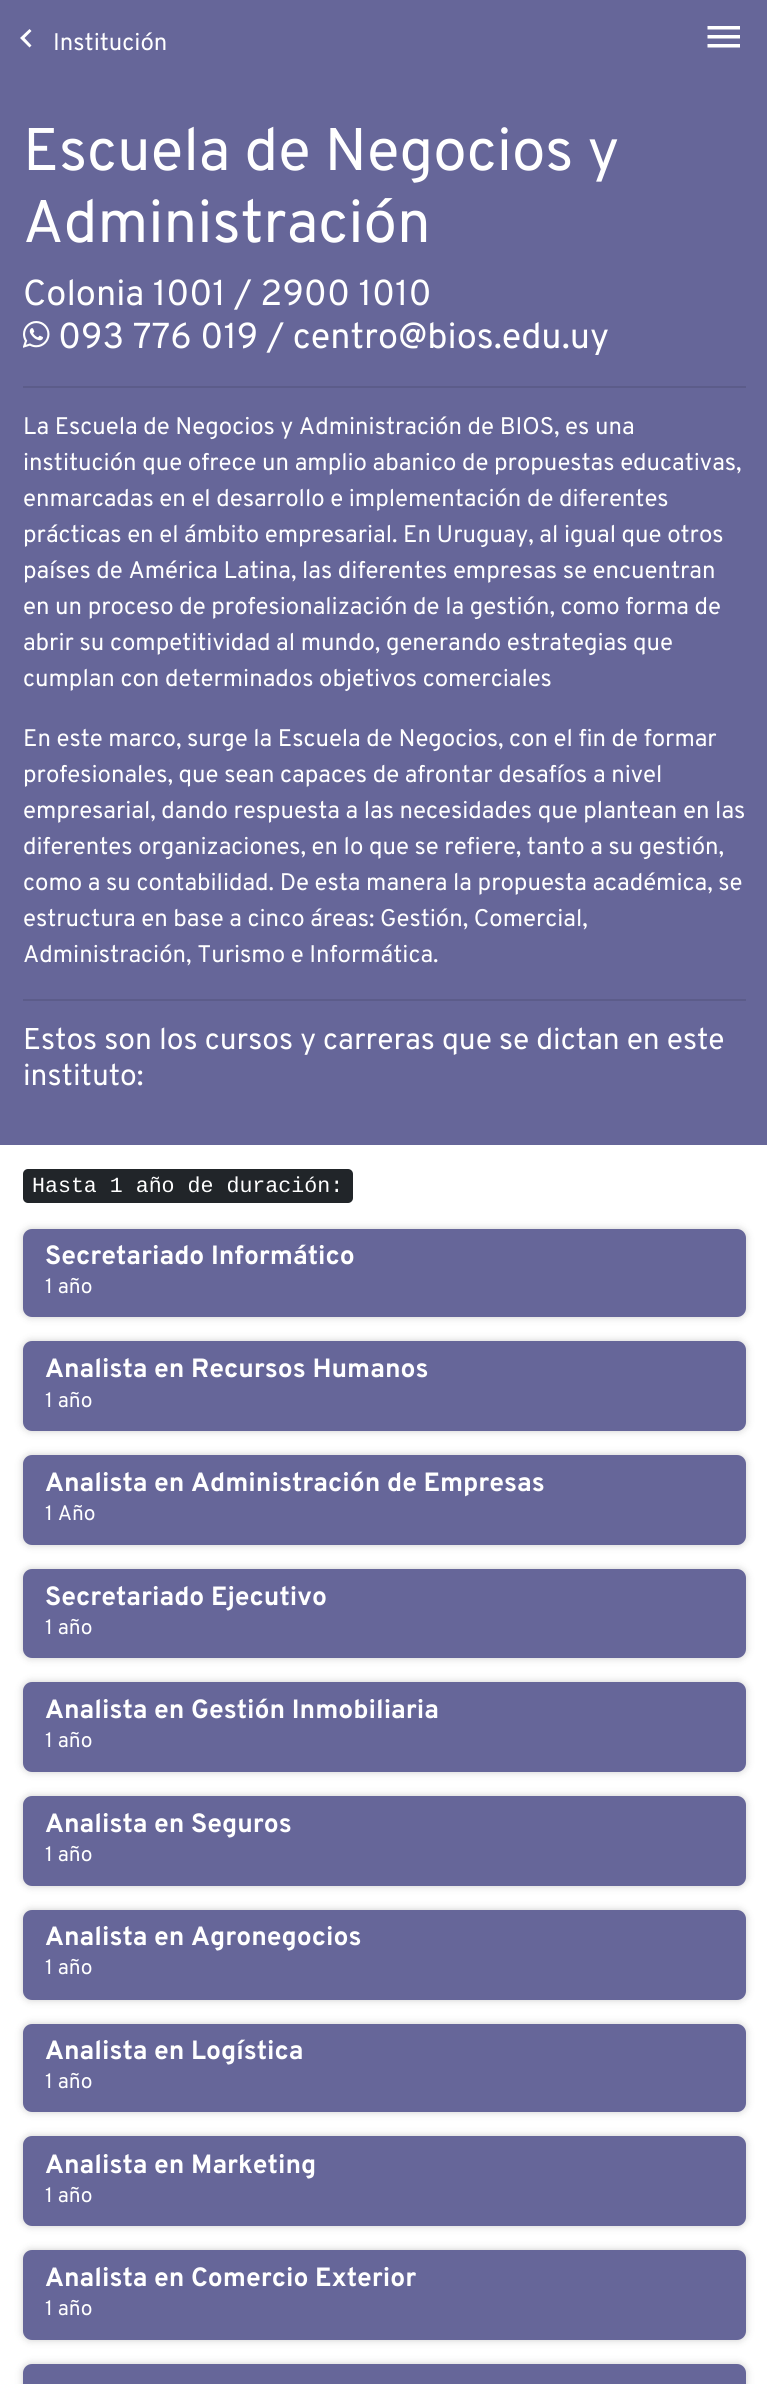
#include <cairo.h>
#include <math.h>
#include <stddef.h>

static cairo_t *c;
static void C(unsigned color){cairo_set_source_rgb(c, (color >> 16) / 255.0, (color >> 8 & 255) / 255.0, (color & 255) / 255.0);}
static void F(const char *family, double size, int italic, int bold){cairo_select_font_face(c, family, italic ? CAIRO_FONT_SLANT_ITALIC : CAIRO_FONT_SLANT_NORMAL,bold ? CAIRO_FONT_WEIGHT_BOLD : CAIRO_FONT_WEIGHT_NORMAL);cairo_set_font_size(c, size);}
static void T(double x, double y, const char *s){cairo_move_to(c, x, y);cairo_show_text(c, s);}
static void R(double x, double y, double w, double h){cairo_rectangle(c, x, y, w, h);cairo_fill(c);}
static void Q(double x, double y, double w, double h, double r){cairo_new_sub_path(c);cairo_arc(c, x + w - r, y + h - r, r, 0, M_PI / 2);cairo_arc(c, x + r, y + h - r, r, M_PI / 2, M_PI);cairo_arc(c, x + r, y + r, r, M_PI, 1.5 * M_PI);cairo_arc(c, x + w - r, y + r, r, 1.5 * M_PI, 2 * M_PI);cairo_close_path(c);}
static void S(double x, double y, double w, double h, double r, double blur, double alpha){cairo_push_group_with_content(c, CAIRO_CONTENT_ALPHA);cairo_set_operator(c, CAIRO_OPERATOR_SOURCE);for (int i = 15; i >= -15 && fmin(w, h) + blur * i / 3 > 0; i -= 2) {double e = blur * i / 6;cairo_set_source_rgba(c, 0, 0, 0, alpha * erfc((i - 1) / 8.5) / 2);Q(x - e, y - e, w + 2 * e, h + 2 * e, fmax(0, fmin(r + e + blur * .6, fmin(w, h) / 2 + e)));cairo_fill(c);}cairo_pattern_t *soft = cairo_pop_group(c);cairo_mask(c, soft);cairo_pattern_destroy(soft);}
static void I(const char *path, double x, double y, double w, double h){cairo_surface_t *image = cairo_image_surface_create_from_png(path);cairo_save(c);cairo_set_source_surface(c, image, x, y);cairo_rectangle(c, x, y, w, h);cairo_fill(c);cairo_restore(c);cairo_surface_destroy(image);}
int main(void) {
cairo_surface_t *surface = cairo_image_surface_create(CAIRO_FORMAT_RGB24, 767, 2384);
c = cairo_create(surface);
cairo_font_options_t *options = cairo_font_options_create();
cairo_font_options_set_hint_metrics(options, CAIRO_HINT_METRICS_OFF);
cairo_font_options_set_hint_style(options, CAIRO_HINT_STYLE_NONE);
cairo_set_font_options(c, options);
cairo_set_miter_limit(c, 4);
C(0xffffff);
cairo_paint(c);
C(0x666699);
R(0,0,767,1145);
C(0xffffff);
cairo_new_path(c);
cairo_move_to(c,31.5,31);
cairo_line_to(c,24.5,38);
cairo_line_to(c,31.5,45.5);
cairo_line_to(c,29.5,47.5);
cairo_line_to(c,20,38);
cairo_line_to(c,29.5,29);
cairo_close_path(c);
cairo_fill(c);
F("Overpass",24,0,0);
T(53,50,"Institución");
cairo_new_path(c);
cairo_move_to(c,707.5,26);
cairo_line_to(c,740,26);
cairo_line_to(c,740,29.5);
cairo_line_to(c,707.5,29.5);
cairo_close_path(c);
cairo_move_to(c,707.5,38.5);
cairo_line_to(c,707.5,35);
cairo_line_to(c,740,35);
cairo_line_to(c,740,38.5);
cairo_close_path(c);
cairo_move_to(c,707.5,47.5);
cairo_line_to(c,707.5,44);
cairo_line_to(c,740,44);
cairo_line_to(c,740,47.5);
cairo_close_path(c);
cairo_fill(c);
F("Overpass",60,0,0);
T(23,170,"Escuela de Negocios y");
T(23,242,"Administración");
F("Overpass",36,0,0);
T(23,305,"Colonia 1001 / 2900 1010");
I("1.png",23,321,27,27);
T(58,348,"093 776 019 / centro@bios.edu.uy");
C(0x5c5c8a);
R(23,386,723,2);
F("Overpass",24,0,0);
C(0xffffff);
T(23,434,"La Escuela de Negocios y Administración de BIOS, es una");
T(23,470,"institución que ofrece un amplio abanico de propuestas educativas,");
T(23,506,"enmarcadas en el desarrollo e implementación de diferentes");
T(23,542,"prácticas en el ámbito empresarial. En Uruguay, al igual que otros");
T(23,578,"países de América Latina, las diferentes empresas se encuentran");
T(23,614,"en un proceso de profesionalización de la gestión, como forma de");
T(23,650,"abrir su competitividad al mundo, generando estrategias que");
T(23,686,"cumplan con determinados objetivos comerciales");
T(23,746,"En este marco, surge la Escuela de Negocios, con el fin de formar");
T(23,782,"profesionales, que sean capaces de afrontar desafíos a nivel");
T(23,818,"empresarial, dando respuesta a las necesidades que plantean en las");
T(23,854,"diferentes organizaciones, en lo que se refiere, tanto a su gestión,");
T(23,890,"como a su contabilidad. De esta manera la propuesta académica, se");
T(23,926,"estructura en base a cinco áreas: Gestión, Comercial,");
T(23,962,"Administración, Turismo e Informática.");
C(0x5c5c8a);
R(23,999,723,2);
F("Overpass",30,0,0);
C(0xffffff);
T(23,1049,"Estos son los cursos y carreras que se dictan en este");
T(23,1085,"instituto:");
C(0x212529);
Q(23,1169,330,34,5);
cairo_fill(c);
F("Liberation Mono",21.6,0,0);
C(0xffffff);
T(32,1192,"Hasta 1 año de duración:");
C(0x000000);
S(23,1229,723,88,8,4,.2);
C(0x666699);
Q(23,1229,723,88,9);
cairo_fill(c);
F("Overpass",26.4,0,1);
C(0xffffff);
T(45,1264,"Secretariado Informático");
F("Overpass",21,0,0);
T(45,1293,"1 año");
C(0x000000);
S(23,1341,723,90,8,4,.2);
C(0x666699);
Q(23,1341,723,90,9);
cairo_fill(c);
F("Overpass",26.4,0,1);
C(0xffffff);
T(45,1377,"Analista en Recursos Humanos");
F("Overpass",21,0,0);
T(45,1407,"1 año");
C(0x000000);
S(23,1455,723,90,8,4,.2);
C(0x666699);
Q(23,1455,723,90,9);
cairo_fill(c);
F("Overpass",26.4,0,1);
C(0xffffff);
T(45,1491,"Analista en Administración de Empresas");
F("Overpass",21,0,0);
T(45,1520,"1 Año");
C(0x000000);
S(23,1569,723,89,8,4,.2);
C(0x666699);
Q(23,1569,723,89,9);
cairo_fill(c);
F("Overpass",26.4,0,1);
C(0xffffff);
T(45,1605,"Secretariado Ejecutivo");
F("Overpass",21,0,0);
T(45,1634,"1 año");
C(0x000000);
S(23,1682,723,90,8,4,.2);
C(0x666699);
Q(23,1682,723,90,9);
cairo_fill(c);
F("Overpass",26.4,0,1);
C(0xffffff);
T(45,1718,"Analista en Gestión Inmobiliaria");
F("Overpass",21,0,0);
T(45,1747,"1 año");
C(0x000000);
S(23,1796,723,90,8,4,.2);
C(0x666699);
Q(23,1796,723,90,9);
cairo_fill(c);
F("Overpass",26.4,0,1);
C(0xffffff);
T(45,1832,"Analista en Seguros");
F("Overpass",21,0,0);
T(45,1861,"1 año");
C(0x000000);
S(23,1910,723,90,8,4,.2);
C(0x666699);
Q(23,1910,723,90,9);
cairo_fill(c);
F("Overpass",26.4,0,1);
C(0xffffff);
T(45,1945,"Analista en Agronegocios");
F("Overpass",21,0,0);
T(45,1974,"1 año");
C(0x000000);
S(23,2024,723,88,8,4,.2);
C(0x666699);
Q(23,2024,723,88,9);
cairo_fill(c);
F("Overpass",26.4,0,1);
C(0xffffff);
T(45,2059,"Analista en Logística");
F("Overpass",21,0,0);
T(45,2088,"1 año");
C(0x000000);
S(23,2136,723,90,8,4,.2);
C(0x666699);
Q(23,2136,723,90,9);
cairo_fill(c);
F("Overpass",26.4,0,1);
C(0xffffff);
T(45,2173,"Analista en Marketing");
F("Overpass",21,0,0);
T(45,2202,"1 año");
C(0x000000);
S(23,2250,723,90,8,4,.2);
C(0x666699);
Q(23,2250,723,90,9);
cairo_fill(c);
F("Overpass",26.4,0,1);
C(0xffffff);
T(45,2286,"Analista en Comercio Exterior");
F("Overpass",21,0,0);
T(45,2315,"1 año");
C(0x000000);
S(23,2364,723,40,8,4,.2);
C(0x666699);
Q(23,2364,723,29,9);
cairo_fill(c);
cairo_surface_write_to_png(surface, "o.png");
cairo_font_options_destroy(options);
cairo_destroy(c);
cairo_surface_destroy(surface);
return 0;
}
